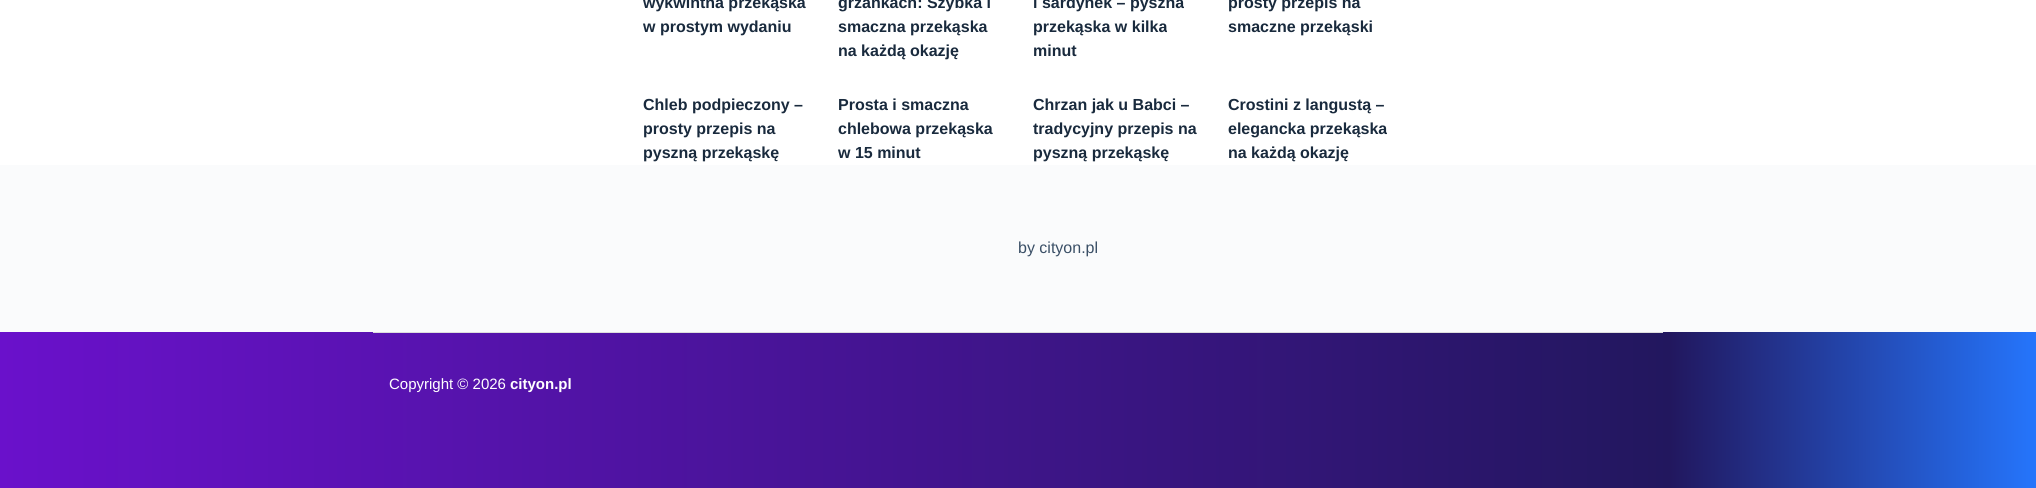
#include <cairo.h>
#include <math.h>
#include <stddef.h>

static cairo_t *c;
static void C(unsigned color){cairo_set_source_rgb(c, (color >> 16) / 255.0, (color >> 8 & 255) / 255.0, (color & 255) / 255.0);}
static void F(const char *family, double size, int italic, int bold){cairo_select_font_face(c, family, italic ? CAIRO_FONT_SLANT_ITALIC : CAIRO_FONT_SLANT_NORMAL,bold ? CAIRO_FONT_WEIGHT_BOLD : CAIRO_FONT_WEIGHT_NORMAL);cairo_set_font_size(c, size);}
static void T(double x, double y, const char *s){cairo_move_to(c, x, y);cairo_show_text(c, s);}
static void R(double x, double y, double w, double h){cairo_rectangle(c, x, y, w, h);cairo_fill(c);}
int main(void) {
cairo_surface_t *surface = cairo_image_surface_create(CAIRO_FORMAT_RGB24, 2036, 488);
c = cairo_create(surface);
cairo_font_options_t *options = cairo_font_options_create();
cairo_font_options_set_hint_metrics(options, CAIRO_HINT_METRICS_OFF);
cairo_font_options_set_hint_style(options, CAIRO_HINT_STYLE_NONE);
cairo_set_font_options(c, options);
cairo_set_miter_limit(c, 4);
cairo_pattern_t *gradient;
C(0xffffff);
cairo_paint(c);
F("Liberation Sans",16,0,1);
C(0x192a3d);
T(643,8,"wykwintna przekąska");
T(643,32,"w prostym wydaniu");
T(838,8,"grzankach: Szybka i");
T(838,32,"smaczna przekąska");
T(838,56,"na każdą okazję");
T(1033,8,"i sardynek – pyszna");
T(1033,32,"przekąska w kilka");
T(1033,56,"minut");
T(1228,8,"prosty przepis na");
T(1228,32,"smaczne przekąski");
T(643,110,"Chleb podpieczony –");
T(643,134,"prosty przepis na");
T(643,158,"pyszną przekąskę");
T(838,110,"Prosta i smaczna");
T(838,134,"chlebowa przekąska");
T(838,158,"w 15 minut");
T(1033,110,"Chrzan jak u Babci –");
T(1033,134,"tradycyjny przepis na");
T(1033,158,"pyszną przekąskę");
T(1228,110,"Crostini z langustą –");
T(1228,134,"elegancka przekąska");
T(1228,158,"na każdą okazję");
C(0xfafbfc);
R(0,165,2036,167);
F("Liberation Sans",16,0,0);
C(0x3a4f66);
T(1018,253,"by cityon.pl");
gradient = cairo_pattern_create_linear(0,410,2036,410);
cairo_pattern_add_color_stop_rgba(gradient,0,0.416,0.067,0.796,1);
cairo_pattern_add_color_stop_rgba(gradient,.82,0.133,0.09,0.369,1);
cairo_pattern_add_color_stop_rgba(gradient,1,0.145,0.459,0.988,1);
cairo_set_source(c,gradient);
cairo_pattern_destroy(gradient);
R(0,332,2036,156);
C(0xdddddd);
R(373,332,1290,1);
F("Liberation Sans",15,0,0);
C(0xffffff);
T(389,389,"Copyright © 2026");
F("Liberation Sans",15,0,1);
T(510,389,"cityon.pl");
cairo_surface_write_to_png(surface, "o.png");
cairo_font_options_destroy(options);
cairo_destroy(c);
cairo_surface_destroy(surface);
return 0;
}
